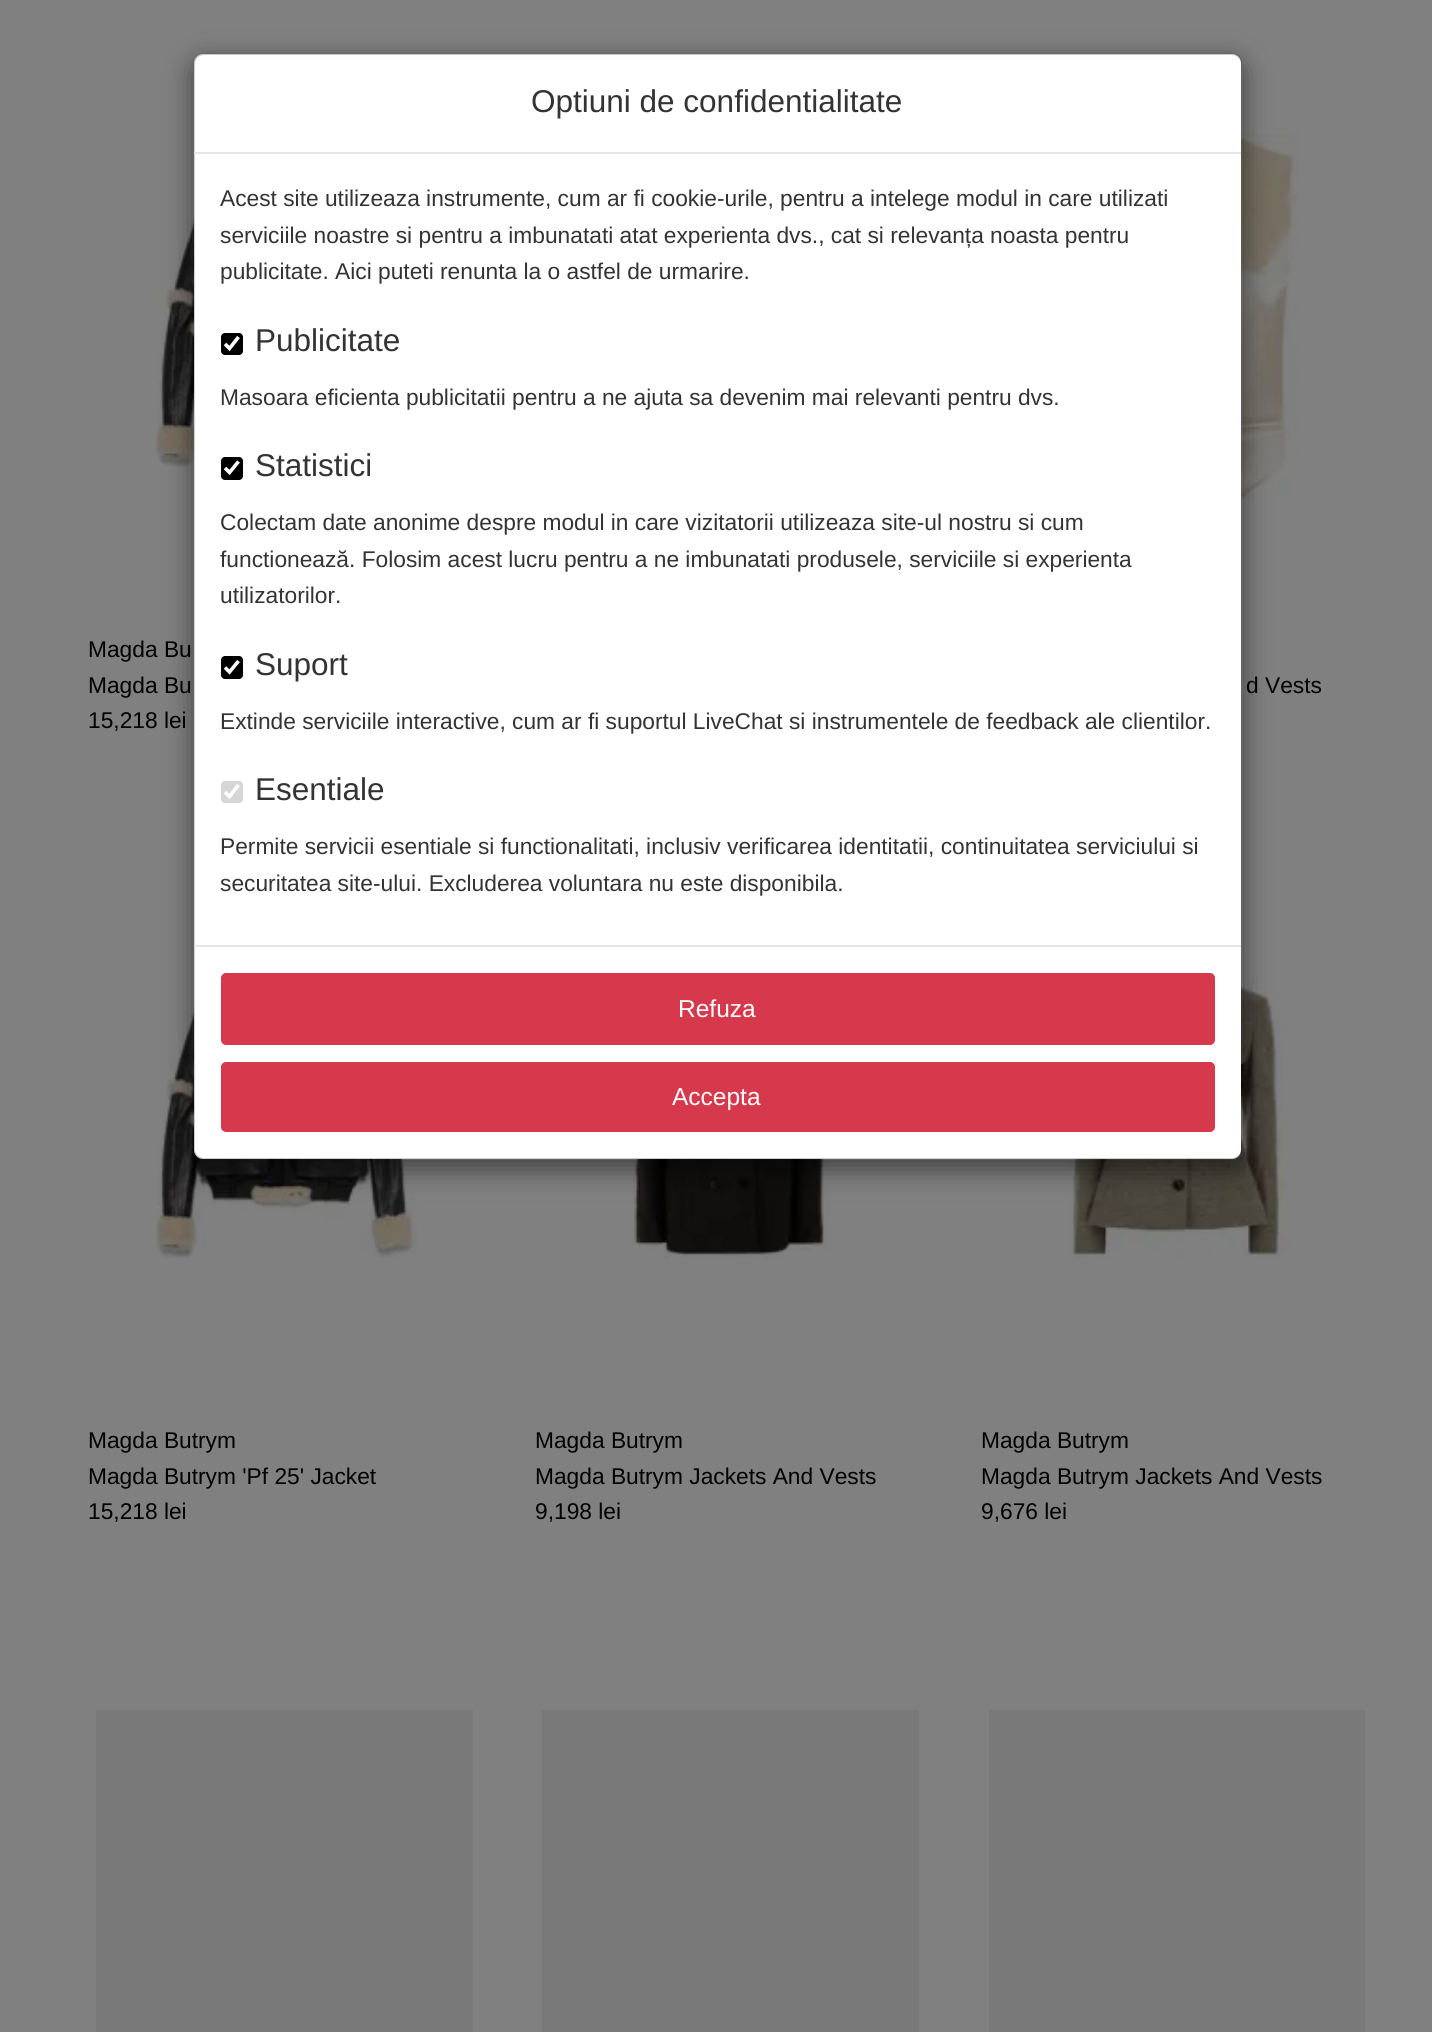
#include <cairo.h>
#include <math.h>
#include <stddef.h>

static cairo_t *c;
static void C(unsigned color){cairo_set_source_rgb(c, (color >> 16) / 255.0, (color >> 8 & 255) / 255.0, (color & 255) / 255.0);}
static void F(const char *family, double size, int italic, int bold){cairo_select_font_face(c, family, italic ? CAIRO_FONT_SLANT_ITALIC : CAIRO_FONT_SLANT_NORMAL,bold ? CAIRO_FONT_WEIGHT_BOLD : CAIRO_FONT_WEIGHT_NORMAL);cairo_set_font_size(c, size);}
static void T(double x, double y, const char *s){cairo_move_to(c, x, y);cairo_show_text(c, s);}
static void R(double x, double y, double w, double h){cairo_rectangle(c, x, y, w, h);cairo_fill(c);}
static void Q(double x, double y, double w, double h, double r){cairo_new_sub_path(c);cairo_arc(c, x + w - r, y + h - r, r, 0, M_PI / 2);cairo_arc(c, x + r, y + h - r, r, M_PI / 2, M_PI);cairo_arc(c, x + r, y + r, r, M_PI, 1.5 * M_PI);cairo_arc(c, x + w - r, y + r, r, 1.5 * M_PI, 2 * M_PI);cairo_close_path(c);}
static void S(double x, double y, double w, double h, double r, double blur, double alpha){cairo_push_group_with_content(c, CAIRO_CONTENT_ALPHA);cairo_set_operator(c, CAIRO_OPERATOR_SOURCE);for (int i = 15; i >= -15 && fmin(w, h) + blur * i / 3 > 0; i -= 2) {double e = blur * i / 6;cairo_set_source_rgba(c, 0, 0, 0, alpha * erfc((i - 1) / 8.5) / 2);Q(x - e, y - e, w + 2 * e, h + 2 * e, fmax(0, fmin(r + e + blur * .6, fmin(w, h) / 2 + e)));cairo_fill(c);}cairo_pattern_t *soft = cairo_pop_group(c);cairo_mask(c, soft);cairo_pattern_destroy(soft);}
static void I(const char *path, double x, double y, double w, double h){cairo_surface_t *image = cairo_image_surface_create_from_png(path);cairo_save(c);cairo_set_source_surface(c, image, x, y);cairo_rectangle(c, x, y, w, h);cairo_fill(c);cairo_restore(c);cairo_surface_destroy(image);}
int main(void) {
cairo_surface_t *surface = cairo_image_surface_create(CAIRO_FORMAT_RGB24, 1432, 2032);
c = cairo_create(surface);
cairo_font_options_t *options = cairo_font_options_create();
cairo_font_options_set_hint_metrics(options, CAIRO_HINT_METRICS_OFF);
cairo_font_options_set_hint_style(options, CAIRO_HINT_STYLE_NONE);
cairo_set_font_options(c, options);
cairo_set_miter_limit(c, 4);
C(0x808080);
cairo_paint(c);
I("1.png",156,170,38,297);
I("2.png",1241,128,58,376);
I("3.png",155,961,262,297);
I("4.png",632,1159,197,100);
I("5.png",1067,956,223,303);
cairo_save(c);
cairo_set_fill_rule(c,CAIRO_FILL_RULE_EVEN_ODD);
cairo_new_path(c);
cairo_move_to(c,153,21);
cairo_line_to(c,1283,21);
cairo_line_to(c,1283,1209);
cairo_line_to(c,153,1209);
cairo_close_path(c);
cairo_move_to(c,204,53);
cairo_line_to(c,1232,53);
cairo_curve_to(c,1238,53,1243,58,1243,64);
cairo_line_to(c,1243,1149);
cairo_curve_to(c,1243,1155,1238,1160,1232,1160);
cairo_line_to(c,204,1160);
cairo_curve_to(c,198,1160,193,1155,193,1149);
cairo_line_to(c,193,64);
cairo_curve_to(c,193,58,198,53,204,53);
cairo_close_path(c);
cairo_clip(c);
C(0x000000);
S(193,61,1050,1108,11,13,.5);
cairo_restore(c);
C(0xffffff);
Q(194,54,1047,1105,9);
cairo_fill(c);
Q(194,54,1048,1105,10);
cairo_set_source_rgba(c,0,0,0,0.2);
cairo_stroke(c);
C(0xe5e5e5);
R(194,152,1047,2);
F("Liberation Sans",31.5,0,0);
C(0x333333);
T(531,112,"Optiuni de confidentialitate");
F("Liberation Sans",22.75,0,0);
T(220,206,"Acest site utilizeaza instrumente, cum ar fi cookie-urile, pentru a intelege modul in care utilizati");
T(220,243,"serviciile noastre si pentru a imbunatati atat experienta dvs., cat si relevanța noasta pentru");
T(220,279,"publicitate. Aici puteti renunta la o astfel de urmarire.");
C(0x000000);
Q(221,333,22,22,4);
cairo_fill(c);
cairo_new_path(c);
cairo_move_to(c,225,344);
cairo_line_to(c,229.5,348.5);
cairo_line_to(c,238.5,337);
C(0xffffff);
cairo_set_line_width(c,3.6);
cairo_stroke(c);
F("Liberation Sans",31.5,0,0);
C(0x333333);
T(255,351,"Publicitate");
F("Liberation Sans",22.75,0,0);
T(220,405,"Masoara eficienta publicitatii pentru a ne ajuta sa devenim mai relevanti pentru dvs.");
C(0x000000);
Q(221,457,22,23,4);
cairo_fill(c);
cairo_new_path(c);
cairo_move_to(c,225,468);
cairo_line_to(c,229.5,472.5);
cairo_line_to(c,238.5,461.5);
C(0xffffff);
cairo_stroke(c);
F("Liberation Sans",31.5,0,0);
C(0x333333);
T(255,476,"Statistici");
F("Liberation Sans",22.75,0,0);
T(220,530,"Colectam date anonime despre modul in care vizitatorii utilizeaza site-ul nostru si cum");
T(220,567,"functionează. Folosim acest lucru pentru a ne imbunatati produsele, serviciile si experienta");
T(220,603,"utilizatorilor.");
C(0x000000);
Q(221,656,22,23,4);
cairo_fill(c);
cairo_new_path(c);
cairo_move_to(c,225,667.5);
cairo_line_to(c,229.5,672);
cairo_line_to(c,238.5,661);
C(0xffffff);
cairo_stroke(c);
F("Liberation Sans",31.5,0,0);
C(0x333333);
T(255,675,"Suport");
F("Liberation Sans",22.75,0,0);
T(220,729,"Extinde serviciile interactive, cum ar fi suportul LiveChat si instrumentele de feedback ale clientilor.");
C(0xd6d6d6);
Q(221,781,22,22,4);
cairo_fill(c);
cairo_new_path(c);
cairo_move_to(c,225,792);
cairo_line_to(c,229.5,796.5);
cairo_line_to(c,238.5,785);
C(0xffffff);
cairo_stroke(c);
F("Liberation Sans",31.5,0,0);
C(0x333333);
T(255,800,"Esentiale");
F("Liberation Sans",22.75,0,0);
T(220,854,"Permite servicii esentiale si functionalitati, inclusiv verificarea identitatii, continuitatea serviciului si");
T(220,891,"securitatea site-ului. Excluderea voluntara nu este disponibila.");
C(0xe5e5e5);
R(194,945,1047,2);
C(0xd5394b);
Q(222,974,992,70,4);
cairo_fill_preserve(c);
cairo_set_line_width(c,2);
cairo_stroke(c);
F("Liberation Sans",24.5,0,0);
C(0xffffff);
T(678,1017,"Refuza");
C(0xd5394b);
Q(222,1063,992,68,4);
cairo_fill_preserve(c);
cairo_stroke(c);
C(0xffffff);
T(672,1105,"Accepta");
F("Liberation Sans",22.75,0,0);
C(0x000000);
T(88,657,"Magda Bu");
T(88,693,"Magda Bu");
T(88,728,"15,218 lei");
T(1246,693,"d Vests");
T(88,1448,"Magda Butrym");
T(88,1484,"Magda Butrym 'Pf 25' Jacket");
T(88,1519,"15,218 lei");
T(535,1448,"Magda Butrym");
T(535,1484,"Magda Butrym Jackets And Vests");
T(535,1519,"9,198 lei");
T(981,1448,"Magda Butrym");
T(981,1484,"Magda Butrym Jackets And Vests");
T(981,1519,"9,676 lei");
C(0x797979);
R(96,1710,377,322);
R(542,1710,377,322);
R(989,1710,376,322);
cairo_surface_write_to_png(surface, "o.png");
cairo_font_options_destroy(options);
cairo_destroy(c);
cairo_surface_destroy(surface);
return 0;
}
